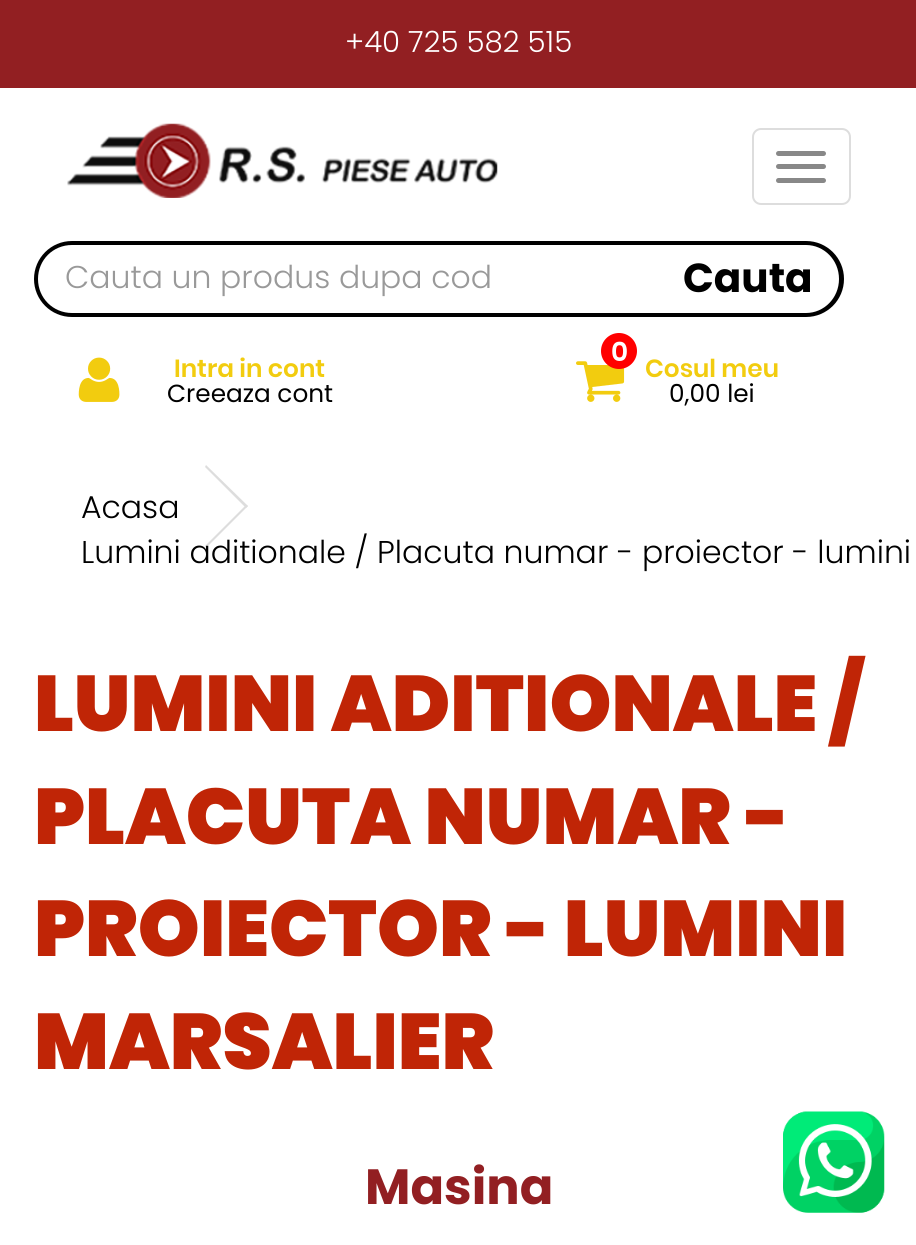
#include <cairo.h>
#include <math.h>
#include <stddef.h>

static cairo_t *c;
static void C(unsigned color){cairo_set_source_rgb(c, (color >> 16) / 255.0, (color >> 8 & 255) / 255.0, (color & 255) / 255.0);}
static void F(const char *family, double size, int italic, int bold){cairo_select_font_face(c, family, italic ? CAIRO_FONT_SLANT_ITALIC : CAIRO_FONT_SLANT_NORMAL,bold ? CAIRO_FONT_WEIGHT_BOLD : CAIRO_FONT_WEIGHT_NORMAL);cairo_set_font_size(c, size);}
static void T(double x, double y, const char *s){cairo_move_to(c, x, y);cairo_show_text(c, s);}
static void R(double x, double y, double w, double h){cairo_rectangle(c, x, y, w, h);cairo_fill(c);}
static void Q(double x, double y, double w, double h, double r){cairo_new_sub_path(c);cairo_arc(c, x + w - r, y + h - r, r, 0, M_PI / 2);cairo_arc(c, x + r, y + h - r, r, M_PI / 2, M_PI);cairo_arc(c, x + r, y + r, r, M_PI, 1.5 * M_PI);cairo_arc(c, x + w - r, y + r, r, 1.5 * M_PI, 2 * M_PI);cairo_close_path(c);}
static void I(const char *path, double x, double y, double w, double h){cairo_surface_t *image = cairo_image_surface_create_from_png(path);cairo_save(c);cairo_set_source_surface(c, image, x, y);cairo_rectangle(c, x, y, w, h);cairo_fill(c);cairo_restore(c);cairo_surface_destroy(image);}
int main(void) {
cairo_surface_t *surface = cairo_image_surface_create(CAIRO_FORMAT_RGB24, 916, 1245);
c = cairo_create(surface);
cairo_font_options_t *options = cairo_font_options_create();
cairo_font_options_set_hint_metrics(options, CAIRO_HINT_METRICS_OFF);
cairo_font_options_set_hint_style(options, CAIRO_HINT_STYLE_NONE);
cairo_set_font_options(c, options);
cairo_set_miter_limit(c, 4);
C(0xffffff);
cairo_paint(c);
C(0x921f22);
R(0,0,916,88);
F("Poppins Light",29.25,0,0);
C(0xffffff);
T(345,52,"+40 725 582 515");
I("1.png",67,123,431,75);
Q(753,129,97,75,8);
C(0xdddddd);
cairo_stroke(c);
C(0x888888);
Q(776,151,50,5,2.5);
cairo_fill(c);
Q(776,164,50,5,2.5);
cairo_fill(c);
Q(776,178,50,5,2.5);
cairo_fill(c);
C(0x000000);
cairo_set_fill_rule(c,CAIRO_FILL_RULE_EVEN_ODD);
cairo_new_path(c);
cairo_move_to(c,72,241);
cairo_line_to(c,657,241);
cairo_line_to(c,657,317);
cairo_line_to(c,72,317);
cairo_curve_to(c,51,317,34,300,34,279);
cairo_curve_to(c,34,258,51,241,72,241);
cairo_close_path(c);
cairo_move_to(c,72,245);
cairo_line_to(c,657,245);
cairo_line_to(c,657,313);
cairo_line_to(c,72,313);
cairo_curve_to(c,53,313,38,298,38,279);
cairo_curve_to(c,38,260,53,245,72,245);
cairo_close_path(c);
cairo_fill(c);
F("Poppins Light",31.5,0,0);
C(0x999999);
T(65,288,"Cauta un produs dupa cod");
C(0x000000);
cairo_new_path(c);
cairo_move_to(c,655,241);
cairo_line_to(c,806,241);
cairo_curve_to(c,827,241,844,258,844,279);
cairo_curve_to(c,844,300,827,317,806,317);
cairo_line_to(c,655,317);
cairo_close_path(c);
cairo_move_to(c,655,245);
cairo_line_to(c,806,245);
cairo_curve_to(c,824,245,839,260,839,279);
cairo_curve_to(c,839,298,824,313,806,313);
cairo_line_to(c,655,313);
cairo_close_path(c);
cairo_fill(c);
F("Poppins",40.5,0,1);
T(683,292,"Cauta");
I("2.png",78,357,42,45);
F("Poppins SemiBold",24.75,0,0);
C(0xf2cc0f);
T(174,377,"Intra in cont");
F("Poppins",24.75,0,0);
C(0x000000);
T(167,402,"Creeaza cont");
I("3.png",576,361,49,41);
C(0xff0000);
cairo_arc(c,619,351,18,0,2 * M_PI);
cairo_fill(c);
F("Poppins SemiBold",27,0,0);
C(0xffffff);
T(611,361,"0");
F("Poppins SemiBold",24.75,0,0);
C(0xf2cc0f);
T(645,377,"Cosul meu");
F("Poppins",24.75,0,0);
C(0x000000);
T(669,402,"0,00 lei");
F("Poppins Light",31.5,0,0);
T(81,518,"Acasa");
C(0xdddddd);
cairo_set_fill_rule(c,CAIRO_FILL_RULE_WINDING);
cairo_new_path(c);
cairo_move_to(c,205,467);
cairo_line_to(c,206,465);
cairo_line_to(c,248,506);
cairo_line_to(c,246,508);
cairo_close_path(c);
cairo_fill(c);
cairo_new_path(c);
cairo_move_to(c,205,546);
cairo_line_to(c,246,505);
cairo_line_to(c,248,506);
cairo_line_to(c,206,548);
cairo_close_path(c);
cairo_fill(c);
C(0x000000);
T(81,563,"Lumini aditionale / Placuta numar - proiector - lumini");
F("Poppins Black",78.75,0,0);
C(0xc02506);
T(34,731,"LUMINI ADITIONALE /");
T(34,844,"PLACUTA NUMAR -");
T(34,956,"PROIECTOR - LUMINI");
T(34,1069,"MARSALIER");
F("Poppins",49.5,0,1);
C(0x921f22);
T(365,1204,"Masina");
I("4.png",783,1111,102,102);
cairo_surface_write_to_png(surface, "o.png");
cairo_font_options_destroy(options);
cairo_destroy(c);
cairo_surface_destroy(surface);
return 0;
}
